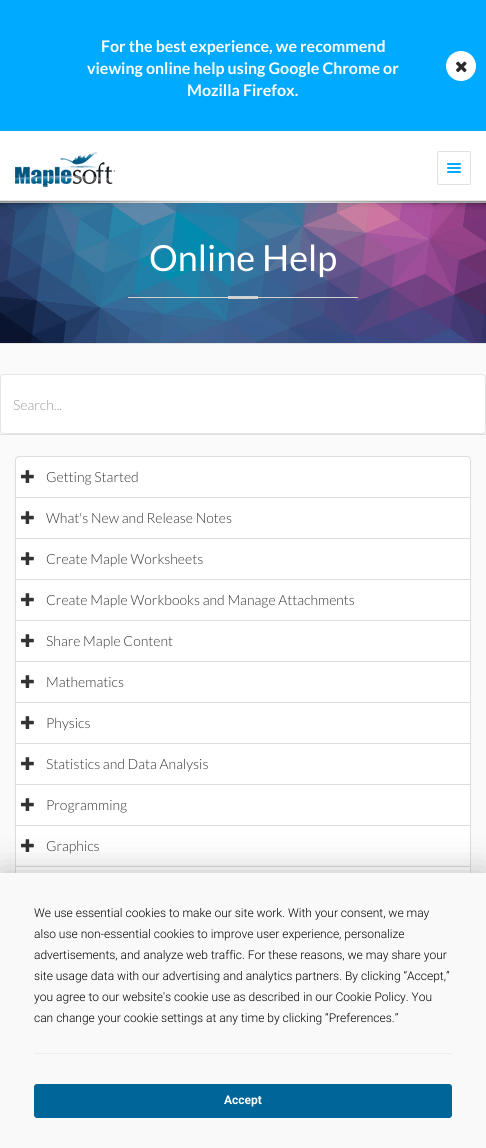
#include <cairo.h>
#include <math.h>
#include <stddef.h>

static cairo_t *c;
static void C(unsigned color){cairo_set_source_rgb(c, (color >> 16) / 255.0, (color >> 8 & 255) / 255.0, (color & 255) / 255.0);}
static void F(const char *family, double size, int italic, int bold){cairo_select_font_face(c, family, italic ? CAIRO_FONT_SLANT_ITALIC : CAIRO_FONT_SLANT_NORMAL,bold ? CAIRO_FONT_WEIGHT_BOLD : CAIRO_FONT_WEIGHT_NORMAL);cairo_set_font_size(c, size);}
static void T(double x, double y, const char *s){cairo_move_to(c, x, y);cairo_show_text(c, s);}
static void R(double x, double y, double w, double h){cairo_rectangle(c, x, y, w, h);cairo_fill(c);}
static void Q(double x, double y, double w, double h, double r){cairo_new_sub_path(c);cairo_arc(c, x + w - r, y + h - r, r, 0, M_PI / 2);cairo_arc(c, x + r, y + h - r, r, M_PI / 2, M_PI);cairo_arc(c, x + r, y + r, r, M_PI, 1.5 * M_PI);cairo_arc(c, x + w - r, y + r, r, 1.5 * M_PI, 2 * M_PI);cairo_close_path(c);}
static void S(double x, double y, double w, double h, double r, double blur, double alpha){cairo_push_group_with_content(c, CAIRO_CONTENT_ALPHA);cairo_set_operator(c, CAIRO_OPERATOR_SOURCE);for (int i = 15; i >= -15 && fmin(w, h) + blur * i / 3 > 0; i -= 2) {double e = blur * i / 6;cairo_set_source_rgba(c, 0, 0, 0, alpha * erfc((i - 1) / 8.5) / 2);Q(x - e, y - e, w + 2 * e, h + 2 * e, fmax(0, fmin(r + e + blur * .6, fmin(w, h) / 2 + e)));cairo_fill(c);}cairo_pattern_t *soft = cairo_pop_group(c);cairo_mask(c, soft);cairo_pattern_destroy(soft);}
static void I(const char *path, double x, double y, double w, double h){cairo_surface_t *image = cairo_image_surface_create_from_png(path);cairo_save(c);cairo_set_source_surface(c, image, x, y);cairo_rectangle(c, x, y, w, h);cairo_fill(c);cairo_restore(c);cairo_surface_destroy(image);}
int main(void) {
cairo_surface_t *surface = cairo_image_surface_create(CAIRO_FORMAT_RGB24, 486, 1148);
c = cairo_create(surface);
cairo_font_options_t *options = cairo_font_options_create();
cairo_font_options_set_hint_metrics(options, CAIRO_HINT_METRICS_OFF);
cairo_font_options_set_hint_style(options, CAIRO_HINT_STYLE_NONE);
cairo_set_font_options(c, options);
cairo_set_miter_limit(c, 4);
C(0xfafafa);
cairo_paint(c);
C(0x00aaff);
R(0,0,486,131);
F("Lato",16,0,1);
C(0xffffff);
T(101,52,"For the best experience, we recommend");
T(87,74,"viewing online help using Google Chrome or");
T(187,96,"Mozilla Firefox.");
cairo_new_path(c);
cairo_arc(c,461,66,15,0,2 * M_PI);
cairo_fill(c);
I("1.png",456,61,11,12);
R(0,131,486,70);
C(0xe5e5e5);
R(0,201,486,2);
I("2.png",15,152,100,35);
Q(437.5,151.5,33,33,1.5);
C(0xe1e1e1);
cairo_set_line_width(c,1);
cairo_stroke(c);
C(0x00aaff);
Q(447,163,14,2,1);
cairo_fill(c);
Q(447,167,14,2,1);
cairo_fill(c);
Q(447,171,14,2,1);
cairo_fill(c);
I("4.png",0,203,486,140);
I("3.png",0,200,486,10);
C(0xe5e5e5);
R(0,343,486,1);
F("Lato",36,0,0);
C(0xffffff);
T(149,271,"Online Help");
C(0xd3d2d2);
R(228,296,30,3);
R(128,297,100,1);
R(258,297,100,1);
C(0xe1e1e1);
R(0,434,486,1);
C(0xffffff);
Q(.5,374.5,485,59,3.5);
cairo_fill_preserve(c);
C(0xe5e5e5);
cairo_stroke(c);
F("Lato Light",14,0,0);
C(0x999999);
T(13,410,"Search...");
C(0xffffff);
cairo_new_path(c);
cairo_move_to(c,19,456.5);
cairo_line_to(c,467,456.5);
cairo_curve_to(c,469,456.5,470.5,458,470.5,460);
cairo_line_to(c,470.5,497.5);
cairo_line_to(c,15.5,497.5);
cairo_line_to(c,15.5,460);
cairo_curve_to(c,15.5,458,17,456.5,19,456.5);
cairo_close_path(c);
cairo_fill_preserve(c);
C(0xdddddd);
cairo_stroke(c);
I("5.png",21,470,13,13);
C(0x333333);
T(46,482,"Getting Started");
C(0xffffff);
cairo_rectangle(c,15.5,497.5,455,41);
cairo_fill_preserve(c);
C(0xdddddd);
cairo_stroke(c);
I("5.png",21,511,13,13);
C(0x333333);
T(46,523,"What's New and Release Notes");
C(0xffffff);
cairo_rectangle(c,15.5,538.5,455,41);
cairo_fill_preserve(c);
C(0xdddddd);
cairo_stroke(c);
I("5.png",21,552,13,13);
C(0x333333);
T(46,564,"Create Maple Worksheets");
C(0xffffff);
cairo_rectangle(c,15.5,579.5,455,41);
cairo_fill_preserve(c);
C(0xdddddd);
cairo_stroke(c);
I("5.png",21,593,13,13);
C(0x333333);
T(46,605,"Create Maple Workbooks and Manage Attachments");
C(0xffffff);
cairo_rectangle(c,15.5,620.5,455,41);
cairo_fill_preserve(c);
C(0xdddddd);
cairo_stroke(c);
I("5.png",21,634,13,13);
C(0x333333);
T(46,646,"Share Maple Content");
C(0xffffff);
cairo_rectangle(c,15.5,661.5,455,41);
cairo_fill_preserve(c);
C(0xdddddd);
cairo_stroke(c);
I("5.png",21,675,13,13);
C(0x333333);
T(46,687,"Mathematics");
C(0xffffff);
cairo_rectangle(c,15.5,702.5,455,41);
cairo_fill_preserve(c);
C(0xdddddd);
cairo_stroke(c);
I("5.png",21,716,13,13);
C(0x333333);
T(46,728,"Physics");
C(0xffffff);
cairo_rectangle(c,15.5,743.5,455,41);
cairo_fill_preserve(c);
C(0xdddddd);
cairo_stroke(c);
I("5.png",21,757,13,13);
C(0x333333);
T(46,769,"Statistics and Data Analysis");
C(0xffffff);
cairo_rectangle(c,15.5,784.5,455,41);
cairo_fill_preserve(c);
C(0xdddddd);
cairo_stroke(c);
I("5.png",21,798,13,13);
C(0x333333);
T(46,810,"Programming");
C(0xffffff);
cairo_rectangle(c,15.5,825.5,455,41);
cairo_fill_preserve(c);
C(0xdddddd);
cairo_stroke(c);
I("5.png",21,839,13,13);
C(0x333333);
T(46,851,"Graphics");
C(0xffffff);
R(16,867,454,6);
cairo_rectangle(c,15.5,866.5,455,41);
C(0xdddddd);
cairo_stroke(c);
C(0x000000);
S(0,873,486,275,0,17.5,.25);
C(0xf9f9f9);
R(0,873,486,275);
F("Roboto Light",12,0,0);
C(0x000000);
T(34,917,"We use essential cookies to make our site work. With your consent, we may");
T(34,938,"also use non-essential cookies to improve user experience, personalize");
T(34,959,"advertisements, and analyze web traffic. For these reasons, we may share your");
T(34,980,"site usage data with our advertising and analytics partners. By clicking “Accept,”");
T(34,1001,"you agree to our website's cookie use as described in our Cookie Policy. You");
T(34,1022,"can change your cookie settings at any time by clicking “Preferences.”");
C(0xededef);
R(34,1053,418,1);
C(0x006699);
Q(34.5,1084.5,417,33,2.5);
cairo_fill_preserve(c);
cairo_stroke(c);
F("Roboto",12,0,1);
C(0xffffff);
T(224,1104,"Accept");
cairo_surface_write_to_png(surface, "o.png");
cairo_font_options_destroy(options);
cairo_destroy(c);
cairo_surface_destroy(surface);
return 0;
}
